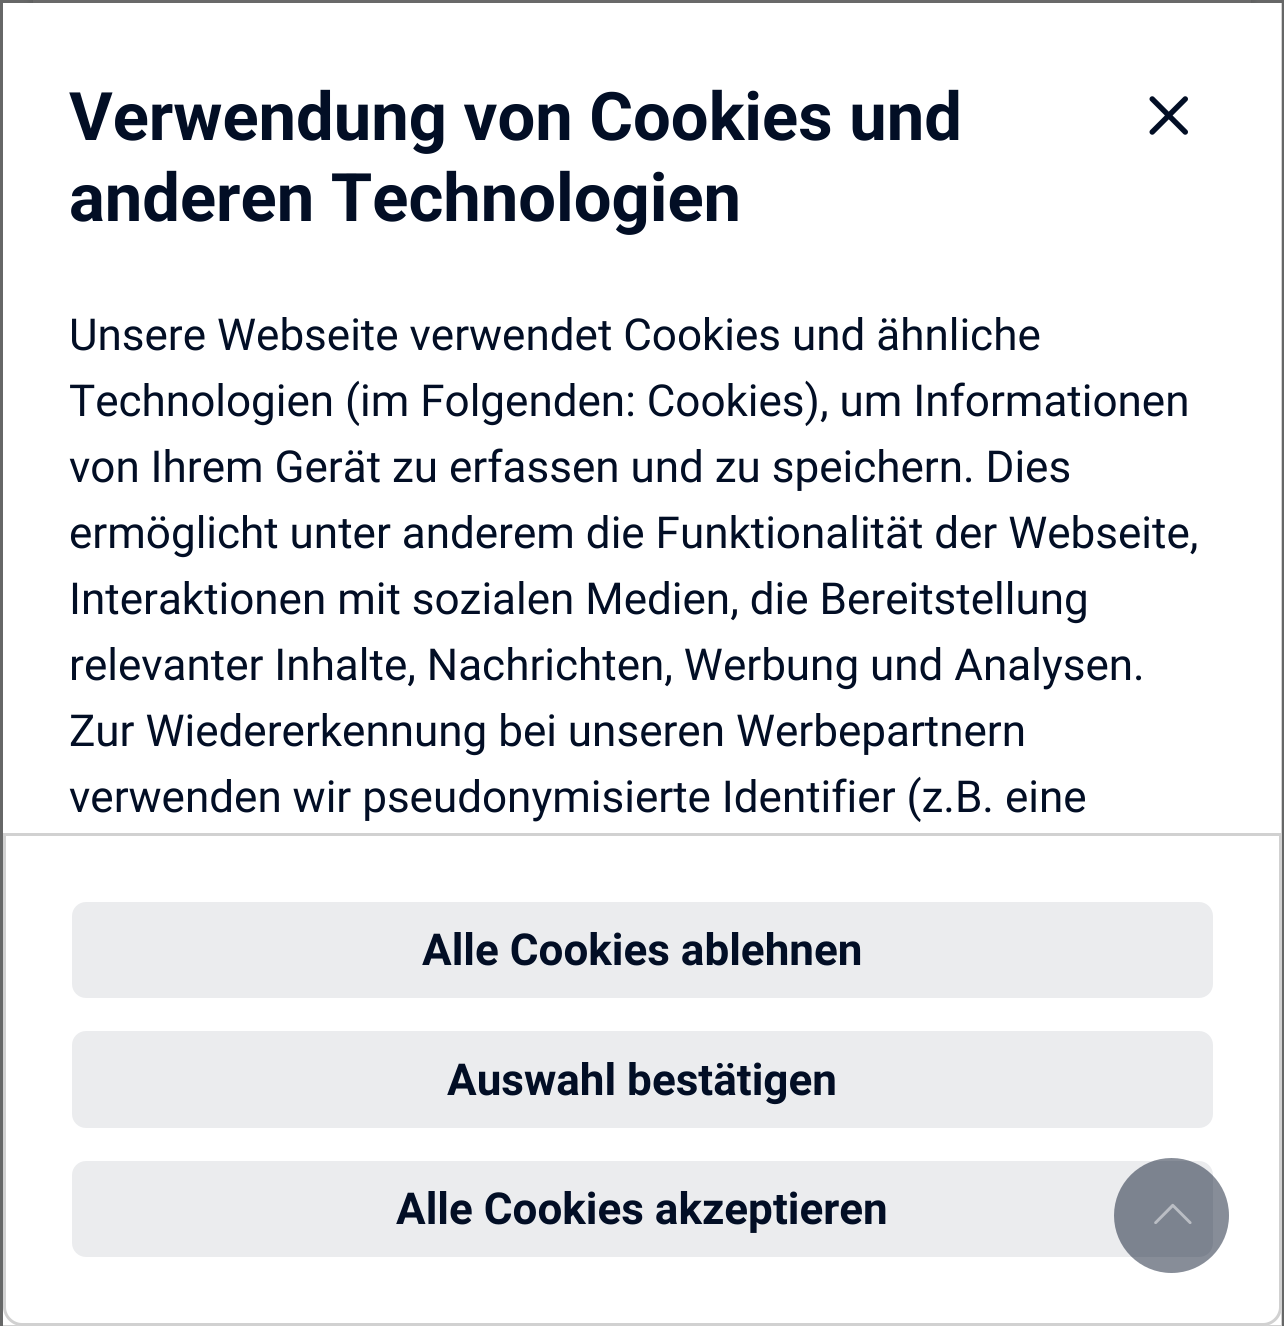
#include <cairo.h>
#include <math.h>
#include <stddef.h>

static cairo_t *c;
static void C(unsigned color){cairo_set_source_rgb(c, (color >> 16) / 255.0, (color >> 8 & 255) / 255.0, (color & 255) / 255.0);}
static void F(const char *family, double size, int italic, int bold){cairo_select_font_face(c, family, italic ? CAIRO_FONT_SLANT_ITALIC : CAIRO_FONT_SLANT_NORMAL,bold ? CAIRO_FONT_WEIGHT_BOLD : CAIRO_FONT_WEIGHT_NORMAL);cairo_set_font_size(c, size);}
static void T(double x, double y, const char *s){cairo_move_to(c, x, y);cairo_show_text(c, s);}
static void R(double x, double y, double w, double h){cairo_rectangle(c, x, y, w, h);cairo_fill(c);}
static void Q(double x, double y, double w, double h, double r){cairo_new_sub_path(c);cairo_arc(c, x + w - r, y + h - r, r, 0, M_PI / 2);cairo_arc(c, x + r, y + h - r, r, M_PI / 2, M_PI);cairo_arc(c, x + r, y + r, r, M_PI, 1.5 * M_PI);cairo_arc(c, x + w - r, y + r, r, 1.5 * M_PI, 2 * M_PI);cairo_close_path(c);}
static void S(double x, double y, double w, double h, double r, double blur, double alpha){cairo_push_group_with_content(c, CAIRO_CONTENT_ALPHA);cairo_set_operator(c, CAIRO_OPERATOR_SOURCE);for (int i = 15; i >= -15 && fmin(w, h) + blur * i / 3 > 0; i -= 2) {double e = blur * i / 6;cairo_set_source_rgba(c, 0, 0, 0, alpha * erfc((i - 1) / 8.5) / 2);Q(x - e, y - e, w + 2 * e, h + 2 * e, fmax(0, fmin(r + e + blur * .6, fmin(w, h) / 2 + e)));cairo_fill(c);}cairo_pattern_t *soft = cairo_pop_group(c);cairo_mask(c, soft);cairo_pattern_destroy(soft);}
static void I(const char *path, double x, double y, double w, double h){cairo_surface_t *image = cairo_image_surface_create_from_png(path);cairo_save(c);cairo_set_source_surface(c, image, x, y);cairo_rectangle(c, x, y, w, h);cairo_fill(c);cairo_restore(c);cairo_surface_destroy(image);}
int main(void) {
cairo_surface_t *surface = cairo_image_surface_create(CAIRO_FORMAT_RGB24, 1284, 1326);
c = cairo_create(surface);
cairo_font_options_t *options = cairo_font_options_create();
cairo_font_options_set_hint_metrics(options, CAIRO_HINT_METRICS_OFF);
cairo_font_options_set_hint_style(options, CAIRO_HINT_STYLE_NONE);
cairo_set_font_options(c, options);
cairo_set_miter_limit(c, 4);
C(0x7d7e7e);
cairo_paint(c);
C(0x808080);
R(33,0,1218,3);
cairo_save(c);
cairo_set_fill_rule(c,CAIRO_FILL_RULE_EVEN_ODD);
cairo_new_path(c);
cairo_move_to(c,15,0);
cairo_line_to(c,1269,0);
cairo_line_to(c,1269,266);
cairo_line_to(c,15,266);
cairo_close_path(c);
cairo_move_to(c,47,-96);
cairo_line_to(c,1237,-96);
cairo_curve_to(c,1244.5,-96,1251,-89.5,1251,-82);
cairo_line_to(c,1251,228);
cairo_curve_to(c,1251,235.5,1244.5,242,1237,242);
cairo_line_to(c,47,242);
cairo_curve_to(c,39.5,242,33,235.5,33,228);
cairo_line_to(c,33,-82);
cairo_curve_to(c,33,-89.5,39.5,-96,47,-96);
cairo_close_path(c);
cairo_clip(c);
C(0x000000);
S(33,-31,1218,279,14,5.5,.16);
cairo_restore(c);
C(0xffffff);
R(3,3,1279,1323);
cairo_rectangle(c,1.5,1.5,1281,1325);
cairo_set_source_rgba(c,0,0,0,0.18);
cairo_set_line_width(c,3);
cairo_stroke(c);
F("Roboto",66.9,0,1);
C(0x020e25);
T(69,140,"Verwendung von Cookies und");
I("1.png",1149,96,39,39);
T(69,221,"anderen Technologien");
F("Roboto",44,0,0);
T(69,350,"Unsere Webseite verwendet Cookies und ähnliche");
T(69,416,"Technologien (im Folgenden: Cookies), um Informationen");
T(69,482,"von Ihrem Gerät zu erfassen und zu speichern. Dies");
T(69,548,"ermöglicht unter anderem die Funktionalität der Webseite,");
T(69,614,"Interaktionen mit sozialen Medien, die Bereitstellung");
T(69,680,"relevanter Inhalte, Nachrichten, Werbung und Analysen.");
T(69,746,"Zur Wiedererkennung bei unseren Werbepartnern");
T(69,812,"verwenden wir pseudonymisierte Identifier (z.B. eine");
C(0xffffff);
cairo_new_path(c);
cairo_move_to(c,3,833);
cairo_line_to(c,1282,833);
cairo_line_to(c,1282,1307);
cairo_curve_to(c,1282,1317.5,1273.5,1326,1263,1326);
cairo_line_to(c,22,1326);
cairo_curve_to(c,11.5,1326,3,1317.5,3,1307);
cairo_close_path(c);
cairo_fill(c);
cairo_new_path(c);
cairo_move_to(c,4.5,834.5);
cairo_line_to(c,1280.5,834.5);
cairo_line_to(c,1280.5,1307);
cairo_curve_to(c,1280.5,1316.5,1272.5,1324.5,1263,1324.5);
cairo_line_to(c,22,1324.5);
cairo_curve_to(c,12.5,1324.5,4.5,1316.5,4.5,1307);
cairo_close_path(c);
cairo_set_source_rgba(c,0,0,0,0.18);
cairo_stroke(c);
C(0xebecee);
Q(72,902,1141,96,14);
cairo_fill(c);
F("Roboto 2",44,0,1);
C(0x020e25);
T(422,965,"Alle Cookies ablehnen");
C(0xebecee);
Q(72,1031,1141,97,14);
cairo_fill(c);
C(0x020e25);
T(447,1095,"Auswahl bestätigen");
C(0xebecee);
Q(72,1161,1141,96,14);
cairo_fill(c);
C(0x020e25);
T(396,1224,"Alle Cookies akzeptieren");
cairo_set_source_rgba(c,0.008,0.055,0.145,0.47);
cairo_new_path(c);
cairo_arc(c,1171.5,1215.5,57.5,0,2 * M_PI);
cairo_fill(c);
I("2.png",1154,1203,38,21);
cairo_surface_write_to_png(surface, "o.png");
cairo_font_options_destroy(options);
cairo_destroy(c);
cairo_surface_destroy(surface);
return 0;
}
